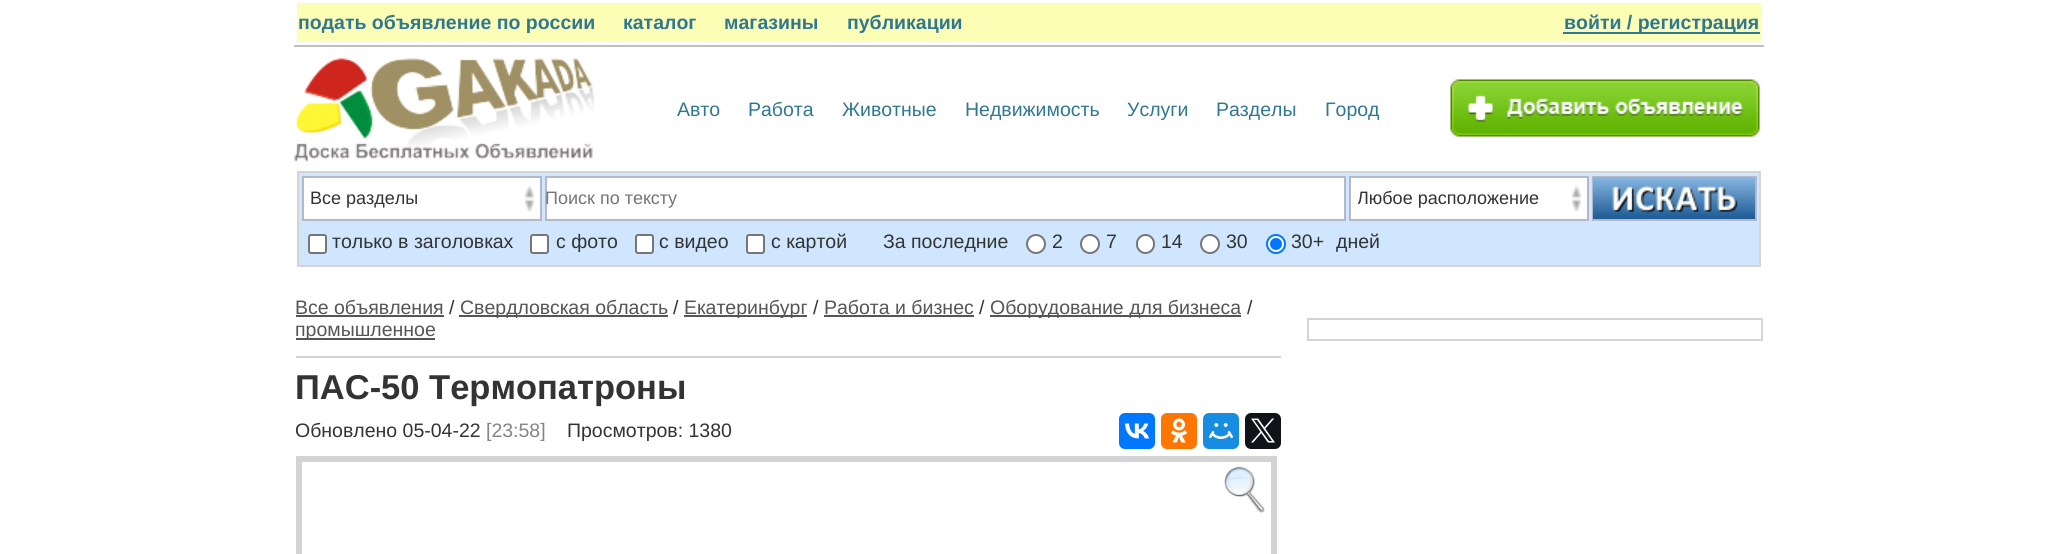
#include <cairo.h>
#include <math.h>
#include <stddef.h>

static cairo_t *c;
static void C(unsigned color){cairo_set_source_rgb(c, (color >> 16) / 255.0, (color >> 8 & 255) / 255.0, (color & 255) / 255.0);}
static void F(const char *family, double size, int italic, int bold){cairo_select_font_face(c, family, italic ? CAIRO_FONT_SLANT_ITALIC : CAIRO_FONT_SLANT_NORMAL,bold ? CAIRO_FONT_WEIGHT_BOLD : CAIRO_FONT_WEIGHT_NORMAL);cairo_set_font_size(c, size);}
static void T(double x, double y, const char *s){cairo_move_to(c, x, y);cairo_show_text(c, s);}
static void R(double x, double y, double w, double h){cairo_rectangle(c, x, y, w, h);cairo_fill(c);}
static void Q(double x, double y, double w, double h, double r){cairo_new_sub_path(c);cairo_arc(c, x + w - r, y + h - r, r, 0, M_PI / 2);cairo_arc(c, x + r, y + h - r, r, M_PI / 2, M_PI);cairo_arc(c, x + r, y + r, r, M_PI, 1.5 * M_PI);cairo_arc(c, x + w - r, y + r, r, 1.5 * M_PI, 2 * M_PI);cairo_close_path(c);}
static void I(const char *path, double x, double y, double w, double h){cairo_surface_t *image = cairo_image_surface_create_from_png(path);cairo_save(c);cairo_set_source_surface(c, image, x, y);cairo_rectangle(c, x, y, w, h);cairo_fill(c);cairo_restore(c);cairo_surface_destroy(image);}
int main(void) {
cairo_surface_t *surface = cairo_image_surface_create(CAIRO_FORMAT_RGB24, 2055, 554);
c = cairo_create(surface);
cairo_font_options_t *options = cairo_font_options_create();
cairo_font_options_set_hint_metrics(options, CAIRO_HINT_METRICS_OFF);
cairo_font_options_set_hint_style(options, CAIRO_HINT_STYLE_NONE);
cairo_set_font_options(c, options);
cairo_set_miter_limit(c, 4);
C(0xffffff);
cairo_paint(c);
C(0xc0c0c0);
R(294,45,1470,2);
C(0xfcfeb6);
R(297,3,1464,39);
F("Liberation Sans",19.5,0,1);
C(0x307792);
T(298,29,"подать объявление по россии");
T(623,29,"каталог");
T(724,29,"магазины");
T(847,29,"публикации");
R(1563,32,197,2);
T(1564,29,"войти / регистрация");
I("1.png",294,58,300,104);
F("Liberation Sans",19.5,0,0);
T(677,116,"Авто");
T(748,116,"Работа");
T(842,116,"Животные");
T(965,116,"Недвижимость");
T(1127,116,"Услуги");
T(1216,116,"Разделы");
T(1325,116,"Город");
I("2.png",1450,79,310,58);
C(0xcfe6fe);
cairo_rectangle(c,298,172,1462,94);
cairo_fill_preserve(c);
C(0xd4d4d4);
cairo_stroke(c);
C(0xffffff);
R(304,178,236,41);
I("3.png",525,186,9,26);
cairo_rectangle(c,303,177,238,43);
C(0xb5b8c8);
cairo_stroke(c);
F("Liberation Sans",18,0,0);
C(0x333333);
T(310,204,"Все разделы");
C(0xffffff);
cairo_rectangle(c,546,177,799,43);
cairo_fill_preserve(c);
C(0xb5b8c8);
cairo_stroke(c);
C(0x757575);
T(545,204,"Поиск по тексту");
C(0xffffff);
R(1351,178,236,41);
I("4.png",1572,186,9,26);
cairo_rectangle(c,1350,177,238,43);
C(0xb5b8c8);
cairo_stroke(c);
cairo_save(c);
cairo_rectangle(c,1358,186,205,24);
cairo_clip(c);
C(0x333333);
T(1357,204,"Любое расположение");
cairo_restore(c);
cairo_rectangle(c,1593,177,163,43);
cairo_stroke(c);
I("5.png",1593,177,162,42);
C(0xffffff);
Q(309,235,17,18,2);
cairo_fill_preserve(c);
C(0x767676);
cairo_stroke(c);
F("Liberation Sans",19.5,0,0);
C(0x333333);
T(332,248,"только в заголовках");
C(0xffffff);
Q(531,235,17,18,2);
cairo_fill_preserve(c);
C(0x767676);
cairo_stroke(c);
C(0x333333);
T(556,248,"с фото");
C(0xffffff);
Q(636,235,17,18,2);
cairo_fill_preserve(c);
C(0x767676);
cairo_stroke(c);
C(0x333333);
T(659,248,"с видео");
C(0xffffff);
Q(747,235,17,18,2);
cairo_fill_preserve(c);
C(0x767676);
cairo_stroke(c);
C(0x333333);
T(771,248,"с картой");
T(883,248,"За последние");
C(0xffffff);
cairo_new_path(c);
cairo_arc(c,1036,244,9,0,2 * M_PI);
cairo_fill_preserve(c);
C(0x767676);
cairo_stroke(c);
C(0x333333);
T(1052,248,"2");
C(0xffffff);
cairo_new_path(c);
cairo_arc(c,1090,244,9,0,2 * M_PI);
cairo_fill_preserve(c);
C(0x767676);
cairo_stroke(c);
C(0x333333);
T(1106,248,"7");
C(0xffffff);
Q(1137,235,17,18,8.5);
cairo_fill_preserve(c);
C(0x767676);
cairo_stroke(c);
C(0x333333);
T(1161,248,"14");
C(0xffffff);
cairo_new_path(c);
cairo_arc(c,1210,244,9,0,2 * M_PI);
cairo_fill_preserve(c);
C(0x767676);
cairo_stroke(c);
C(0x333333);
T(1226,248,"30");
C(0xffffff);
cairo_new_path(c);
cairo_arc(c,1276,244,9,0,2 * M_PI);
cairo_fill_preserve(c);
C(0x0075ff);
cairo_stroke(c);
cairo_arc(c,1276,244,6,0,2 * M_PI);
cairo_fill(c);
C(0x333333);
T(1291,248,"30+");
T(1336,248,"дней");
C(0xd4d4d4);
R(296,356,985,2);
C(0x555555);
T(295,314,"Все объявления");
R(296,315,148,2);
C(0x333333);
T(449,314,"/");
C(0x555555);
R(459,315,209,2);
T(460,314,"Свердловская область");
C(0x333333);
T(673,314,"/");
C(0x555555);
R(684,315,123,2);
T(684,314,"Екатеринбург");
C(0x333333);
T(813,314,"/");
C(0x555555);
T(824,314,"Работа и бизнес");
R(824,315,150,2);
C(0x333333);
T(979,314,"/");
C(0x555555);
R(990,315,251,2);
T(990,314,"Оборудование для бизнеса");
C(0x333333);
T(1247,314,"/");
C(0x555555);
R(296,338,139,2);
T(295,336,"промышленное");
F("Liberation Sans",34.5,0,1);
C(0x333333);
T(295,399,"ПАС-50 Термопатроны");
F("Liberation Sans",19.5,0,0);
T(295,437,"Обновлено 05-04-22");
C(0x858585);
T(486,437,"[23:58]");
C(0x333333);
T(567,437,"Просмотров: 1380");
C(0x0077ff);
Q(1119,413,36,36,6);
cairo_fill(c);
I("6.png",1125,423,24,16);
C(0xff7700);
Q(1161,413,36,36,6);
cairo_fill(c);
I("7.png",1171,418,16,25);
C(0x168de2);
Q(1203,413,36,36,6);
cairo_fill(c);
I("8.png",1209,423,24,16);
C(0x0f1419);
Q(1245,413,36,36,6);
cairo_fill(c);
I("9.png",1251,418,24,25);
cairo_rectangle(c,299,459,975,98);
C(0xd4d4d4);
cairo_set_line_width(c,6);
cairo_stroke(c);
I("10.png",1224,466,41,47);
cairo_rectangle(c,1308,319,454,21);
cairo_set_line_width(c,2);
cairo_stroke(c);
cairo_surface_write_to_png(surface, "o.png");
cairo_font_options_destroy(options);
cairo_destroy(c);
cairo_surface_destroy(surface);
return 0;
}
